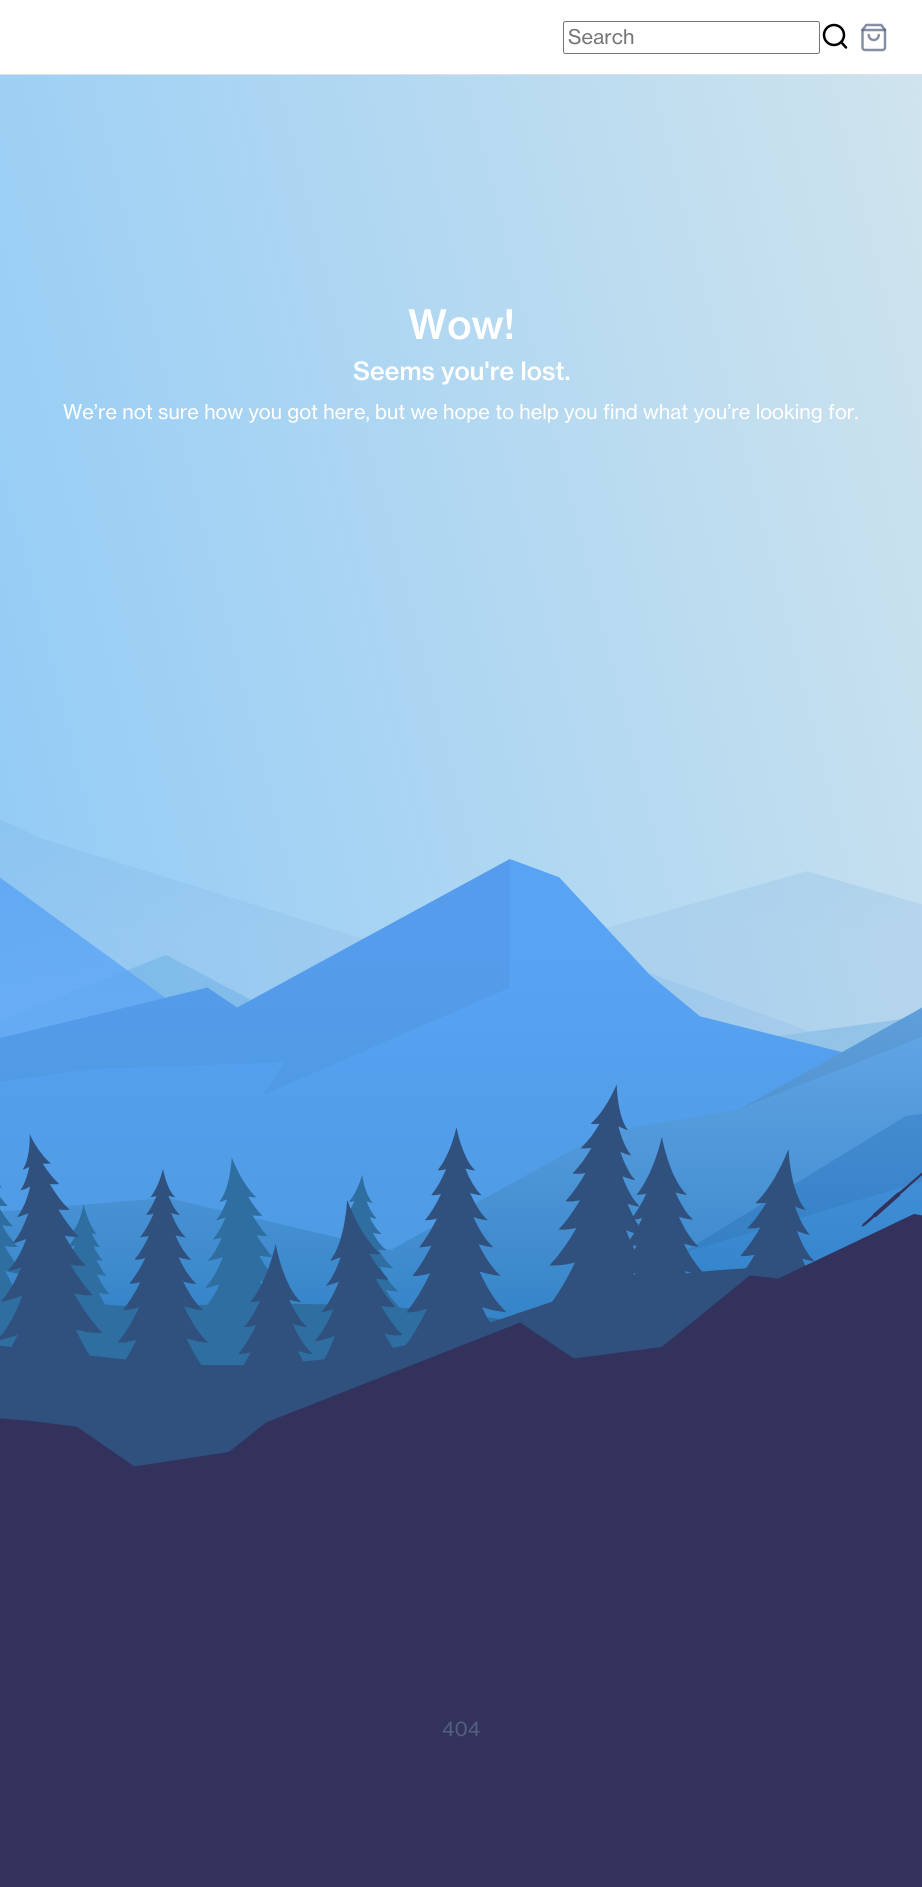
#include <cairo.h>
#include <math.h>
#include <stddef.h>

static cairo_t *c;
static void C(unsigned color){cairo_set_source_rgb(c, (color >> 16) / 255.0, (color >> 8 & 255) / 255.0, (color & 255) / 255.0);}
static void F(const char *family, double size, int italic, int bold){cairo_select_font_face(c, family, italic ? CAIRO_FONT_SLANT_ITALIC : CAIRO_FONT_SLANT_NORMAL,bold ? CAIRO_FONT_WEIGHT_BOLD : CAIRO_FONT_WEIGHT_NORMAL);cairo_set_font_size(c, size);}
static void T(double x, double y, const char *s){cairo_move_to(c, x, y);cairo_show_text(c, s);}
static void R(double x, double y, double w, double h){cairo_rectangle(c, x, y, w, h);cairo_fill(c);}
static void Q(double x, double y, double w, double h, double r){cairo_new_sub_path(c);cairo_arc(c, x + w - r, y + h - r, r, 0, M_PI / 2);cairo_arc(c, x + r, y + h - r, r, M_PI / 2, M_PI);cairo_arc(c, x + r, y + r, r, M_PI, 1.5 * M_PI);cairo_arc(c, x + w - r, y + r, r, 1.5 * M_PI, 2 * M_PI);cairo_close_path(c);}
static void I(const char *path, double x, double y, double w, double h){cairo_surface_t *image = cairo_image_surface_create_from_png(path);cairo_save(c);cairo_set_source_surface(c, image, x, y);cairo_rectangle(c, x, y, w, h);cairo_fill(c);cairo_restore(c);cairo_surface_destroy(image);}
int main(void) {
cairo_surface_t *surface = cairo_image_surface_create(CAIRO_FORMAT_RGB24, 922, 1887);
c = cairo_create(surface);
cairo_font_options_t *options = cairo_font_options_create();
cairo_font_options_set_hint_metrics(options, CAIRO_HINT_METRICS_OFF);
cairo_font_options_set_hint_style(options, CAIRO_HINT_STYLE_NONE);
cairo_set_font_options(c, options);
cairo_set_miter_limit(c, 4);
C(0xffffff);
cairo_paint(c);
C(0xdde2e9);
R(0,74,922,1);
Q(563.5,21.5,256,32,2);
C(0x767676);
cairo_set_line_width(c,1);
cairo_stroke(c);
F("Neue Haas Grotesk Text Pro",20,0,0);
C(0x757575);
T(568,44,"Search");
cairo_new_path(c);
cairo_arc(c,834,35,10,0,2 * M_PI);
C(0x000000);
cairo_set_line_width(c,2.5);
cairo_stroke(c);
cairo_new_path(c);
cairo_move_to(c,846,47.5);
cairo_line_to(c,841,42);
cairo_set_line_cap(c,CAIRO_LINE_CAP_ROUND);
cairo_set_line_join(c,CAIRO_LINE_JOIN_ROUND);
cairo_stroke(c);
I("1.png",861,23,26,29);
I("2.png",0,75,922,1812);
F("Neue Haas Grotesk Text Pro Medium",40,0,0);
C(0xffffff);
T(408,339,"Wow!");
F("Neue Haas Grotesk Text Pro Medium",25,0,0);
T(353,380,"Seems you're lost.");
F("Neue Haas Grotesk Text Pro",20,0,0);
T(63,419,"We’re not sure how you got here, but we hope to help you find what you’re looking for.");
C(0x525f7f);
T(442,1736,"404");
cairo_surface_write_to_png(surface, "o.png");
cairo_font_options_destroy(options);
cairo_destroy(c);
cairo_surface_destroy(surface);
return 0;
}
